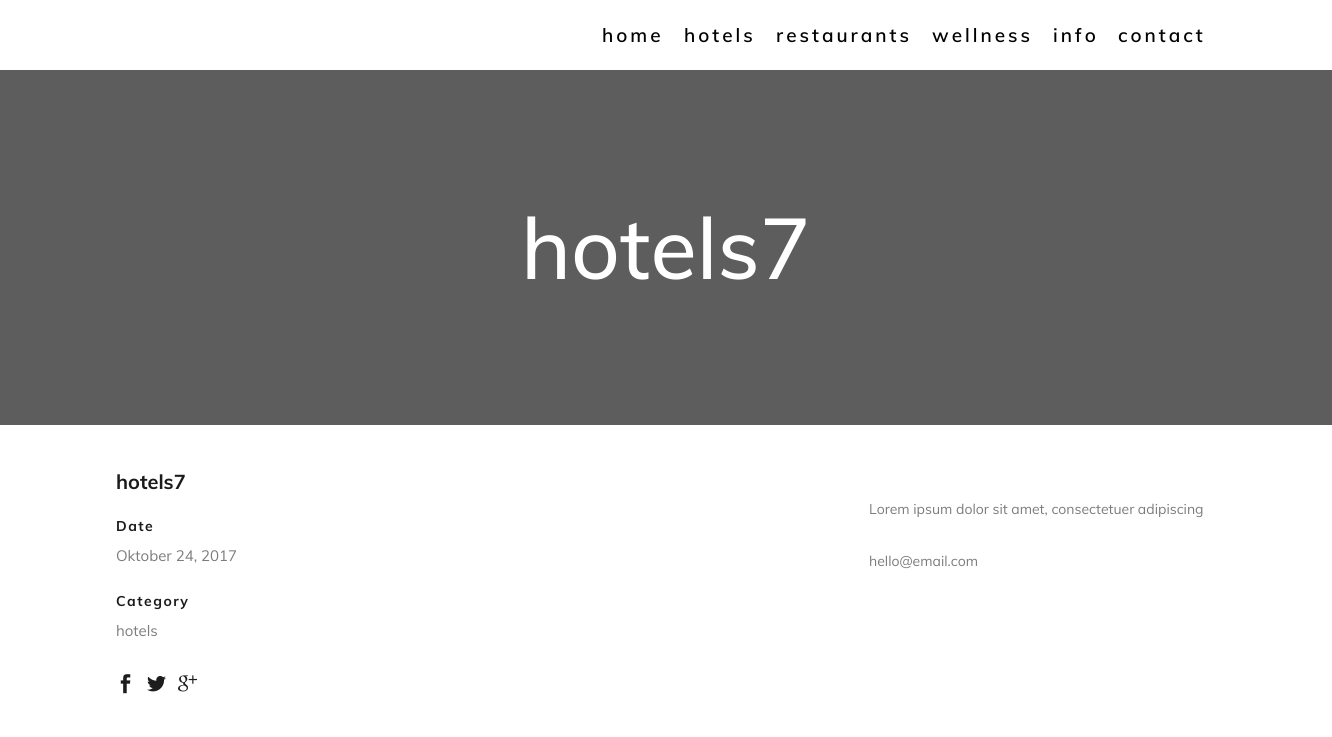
#include <cairo.h>
#include <math.h>
#include <stddef.h>

static cairo_t *c;
static void C(unsigned color){cairo_set_source_rgb(c, (color >> 16) / 255.0, (color >> 8 & 255) / 255.0, (color & 255) / 255.0);}
static void F(const char *family, double size, int italic, int bold){cairo_select_font_face(c, family, italic ? CAIRO_FONT_SLANT_ITALIC : CAIRO_FONT_SLANT_NORMAL,bold ? CAIRO_FONT_WEIGHT_BOLD : CAIRO_FONT_WEIGHT_NORMAL);cairo_set_font_size(c, size);}
static void T(double x, double y, const char *s){cairo_move_to(c, x, y);cairo_show_text(c, s);}
static void L(double x, double y, const char *s, double letter, double word){cairo_move_to(c, x, y);while (*s) {char ch[5] = {0};int n = 0;do ch[n++] = *s++; while ((*s & 0xC0) == 0x80);cairo_show_text(c, ch);cairo_rel_move_to(c, letter + word * (*ch == ' '), 0);}}
static void R(double x, double y, double w, double h){cairo_rectangle(c, x, y, w, h);cairo_fill(c);}
static void I(const char *path, double x, double y, double w, double h){cairo_surface_t *image = cairo_image_surface_create_from_png(path);cairo_save(c);cairo_set_source_surface(c, image, x, y);cairo_rectangle(c, x, y, w, h);cairo_fill(c);cairo_restore(c);cairo_surface_destroy(image);}
int main(void) {
cairo_surface_t *surface = cairo_image_surface_create(CAIRO_FORMAT_RGB24, 1332, 737);
c = cairo_create(surface);
cairo_font_options_t *options = cairo_font_options_create();
cairo_font_options_set_hint_metrics(options, CAIRO_HINT_METRICS_OFF);
cairo_font_options_set_hint_style(options, CAIRO_HINT_STYLE_NONE);
cairo_set_font_options(c, options);
cairo_set_miter_limit(c, 4);
C(0xffffff);
cairo_paint(c);
F("Muli SemiBold",19,0,0);
C(0x000000);
L(602,42,"home",3,0);
L(684,42,"hotels",3,0);
L(776,42,"restaurants",3,0);
L(932,42,"wellness",3,0);
L(1053,42,"info",3,0);
L(1118,42,"contact",3,0);
C(0x5d5d5d);
R(0,70,1332,355);
F("Muli Medium",85,0,0);
C(0xffffff);
T(521,279,"hotels7");
F("Muli",20,0,1);
C(0x1b1b1b);
T(116,489,"hotels7");
F("Muli",14,0,1);
L(116,531,"Date",1.5,0);
F("Muli",15,0,0);
C(0x7c7c7c);
T(116,561,"Oktober 24, 2017");
F("Muli",14,0,1);
C(0x1b1b1b);
L(116,606,"Category",1.5,0);
F("Muli",15,0,0);
C(0x7c7c7c);
T(116,636,"hotels");
I("1.png",120,674,11,20);
I("2.png",147,676,19,16);
I("3.png",178,675,19,17);
F("Muli",14,0,0);
T(869,514,"Lorem ipsum dolor sit amet, consectetuer adipiscing");
T(869,566,"hello@email.com");
cairo_surface_write_to_png(surface, "o.png");
cairo_font_options_destroy(options);
cairo_destroy(c);
cairo_surface_destroy(surface);
return 0;
}
